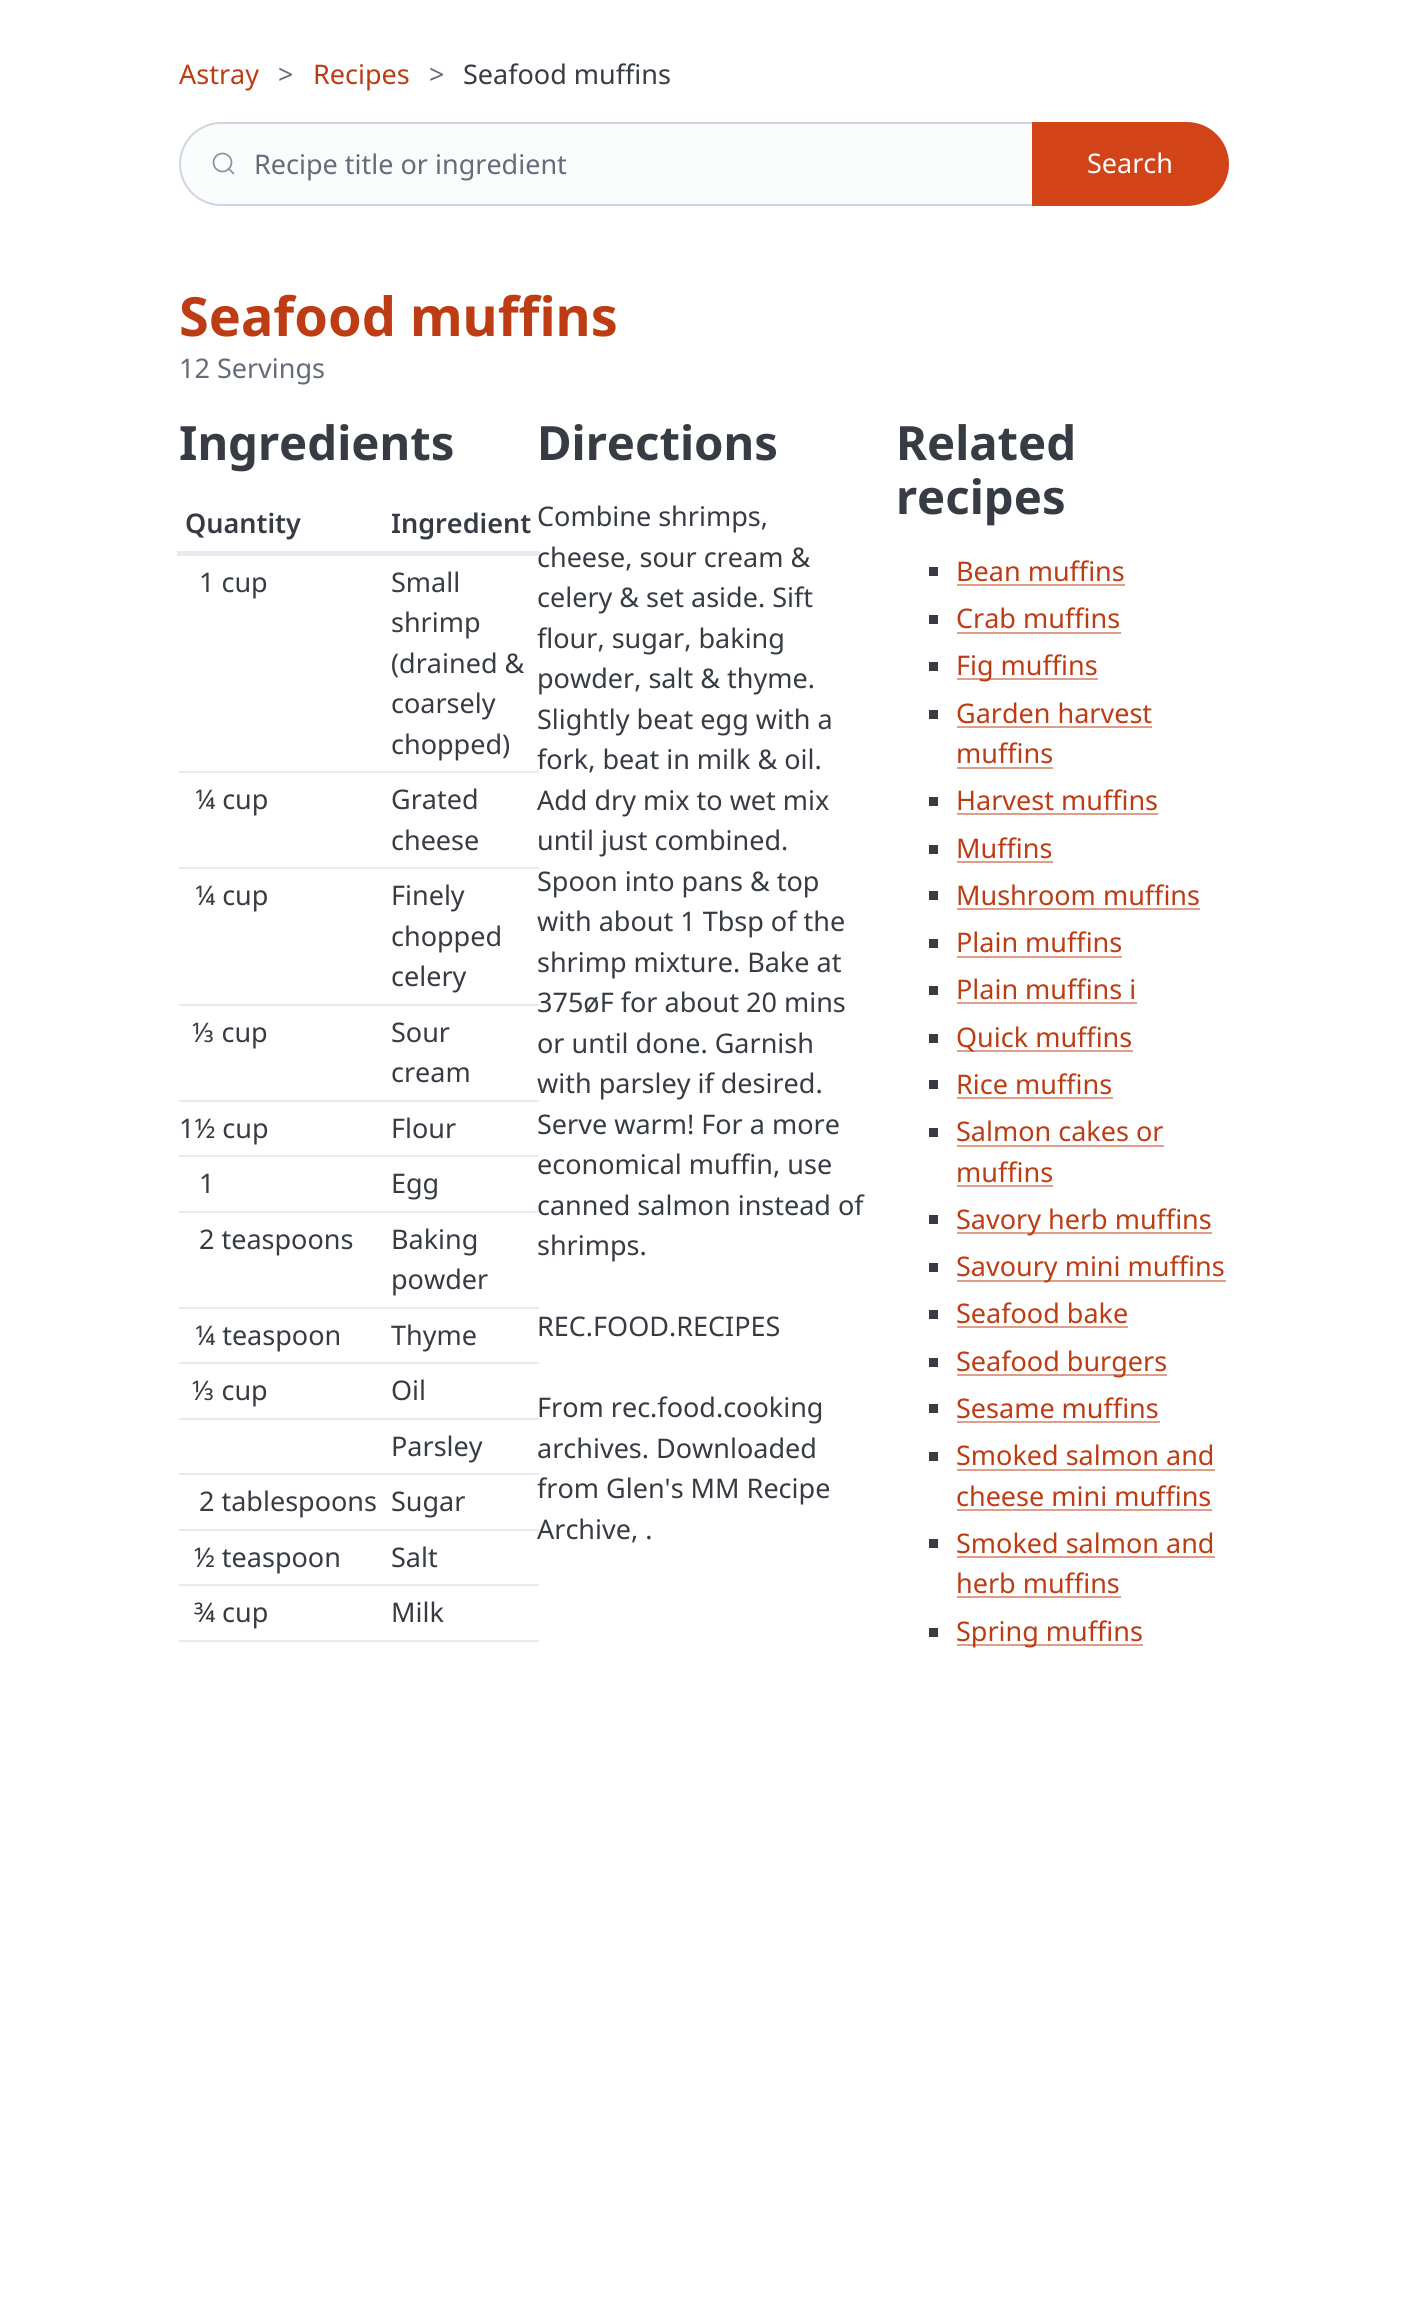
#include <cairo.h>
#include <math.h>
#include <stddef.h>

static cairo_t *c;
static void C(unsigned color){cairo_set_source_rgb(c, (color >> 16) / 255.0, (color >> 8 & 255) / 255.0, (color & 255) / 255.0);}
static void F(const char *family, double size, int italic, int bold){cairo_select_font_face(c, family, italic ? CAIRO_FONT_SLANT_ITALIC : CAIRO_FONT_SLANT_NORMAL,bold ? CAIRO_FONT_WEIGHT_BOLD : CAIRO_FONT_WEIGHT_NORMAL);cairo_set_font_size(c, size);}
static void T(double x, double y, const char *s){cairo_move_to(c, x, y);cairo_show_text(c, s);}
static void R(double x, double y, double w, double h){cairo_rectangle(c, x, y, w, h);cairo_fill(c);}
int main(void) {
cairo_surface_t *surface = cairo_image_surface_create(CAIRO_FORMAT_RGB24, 1406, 2321);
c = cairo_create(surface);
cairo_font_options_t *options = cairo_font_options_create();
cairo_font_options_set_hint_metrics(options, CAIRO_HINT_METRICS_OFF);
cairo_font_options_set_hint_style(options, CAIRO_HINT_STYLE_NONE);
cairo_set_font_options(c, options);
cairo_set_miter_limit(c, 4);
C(0xffffff);
cairo_paint(c);
F("Noto Sans",27,0,0);
C(0xbd3c13);
T(179,84,"Astray");
C(0x646b79);
T(278,84,">");
C(0xbd3c13);
T(313,84,"Recipes");
C(0x646b79);
T(429,84,">");
C(0x373c44);
T(463,84,"Seafood muffins");
C(0xfbfcfc);
cairo_new_path(c);
cairo_move_to(c,221,122);
cairo_line_to(c,1034,122);
cairo_line_to(c,1034,206);
cairo_line_to(c,221,206);
cairo_curve_to(c,198,206,179,187,179,164);
cairo_curve_to(c,179,141,198,122,221,122);
cairo_close_path(c);
cairo_fill(c);
cairo_arc(c,222.5,162.5,9,0,2 * M_PI);
C(0x8891a4);
cairo_set_line_width(c,1.7);
cairo_stroke(c);
cairo_new_path(c);
cairo_move_to(c,233.5,173.5);
cairo_line_to(c,228.5,168.5);
cairo_set_line_cap(c,CAIRO_LINE_CAP_ROUND);
cairo_set_line_join(c,CAIRO_LINE_JOIN_ROUND);
cairo_stroke(c);
cairo_new_path(c);
cairo_move_to(c,221,123);
cairo_line_to(c,1033,123);
cairo_line_to(c,1033,205);
cairo_line_to(c,221,205);
cairo_curve_to(c,198.5,205,180,186.5,180,164);
cairo_curve_to(c,180,141.5,198.5,123,221,123);
cairo_close_path(c);
C(0xcfd5e2);
cairo_set_line_width(c,2);
cairo_set_line_cap(c,CAIRO_LINE_CAP_BUTT);
cairo_set_line_join(c,CAIRO_LINE_JOIN_MITER);
cairo_stroke(c);
C(0x646b79);
T(254,174,"Recipe title or ingredient");
C(0xd24317);
cairo_new_path(c);
cairo_move_to(c,1033,123);
cairo_line_to(c,1187,123);
cairo_curve_to(c,1209.5,123,1228,141.5,1228,164);
cairo_curve_to(c,1228,186.5,1209.5,205,1187,205);
cairo_line_to(c,1033,205);
cairo_close_path(c);
cairo_fill_preserve(c);
cairo_stroke(c);
C(0xffffff);
T(1087,173,"Search");
F("Noto Sans",54,0,1);
C(0xbd3c13);
T(179,336,"Seafood muffins");
F("Noto Sans",27,0,0);
C(0x646b79);
T(179,378,"12 Servings");
F("Noto Sans",47.25,0,1);
C(0x373c44);
T(179,460,"Ingredients");
F("Noto Sans SemiBold",27,0,0);
T(185,533,"Quantity");
C(0xe7eaf0);
R(177,551,363,5);
C(0x373c44);
T(391,533,"Ingredient");
F("Noto Sans",27,0,0);
T(199,592,"1 cup");
C(0xe7eaf0);
R(179,771,360,2);
C(0x373c44);
T(391,592,"Small");
T(391,632,"shrimp");
T(391,673,"(drained &");
T(391,713,"coarsely");
T(391,754,"chopped)");
T(195,809,"¼ cup");
C(0xe7eaf0);
R(179,867,360,2);
C(0x373c44);
T(391,809,"Grated");
T(391,850,"cheese");
T(195,905,"¼ cup");
C(0xe7eaf0);
R(179,1004,360,2);
C(0x373c44);
T(391,905,"Finely");
T(391,946,"chopped");
T(391,986,"celery");
T(192,1042,"⅓ cup");
C(0xe7eaf0);
R(179,1100,360,2);
C(0x373c44);
T(391,1042,"Sour");
T(391,1082,"cream");
T(179,1138,"1½ cup");
C(0xe7eaf0);
R(179,1155,360,2);
C(0x373c44);
T(391,1138,"Flour");
T(199,1193,"1");
C(0xe7eaf0);
R(179,1211,360,2);
C(0x373c44);
T(391,1193,"Egg");
T(199,1249,"2 teaspoons");
C(0xe7eaf0);
R(179,1307,360,2);
C(0x373c44);
T(391,1249,"Baking");
T(391,1289,"powder");
T(195,1345,"¼ teaspoon");
C(0xe7eaf0);
R(179,1362,360,2);
C(0x373c44);
T(391,1345,"Thyme");
T(192,1400,"⅓ cup");
C(0xe7eaf0);
R(179,1418,360,2);
C(0x373c44);
T(391,1400,"Oil");
C(0xe7eaf0);
R(179,1473,360,2);
C(0x373c44);
T(391,1456,"Parsley");
T(199,1511,"2 tablespoons");
C(0xe7eaf0);
R(179,1529,360,2);
C(0x373c44);
T(391,1511,"Sugar");
T(194,1567,"½ teaspoon");
C(0xe7eaf0);
R(179,1584,360,2);
C(0x373c44);
T(391,1567,"Salt");
T(194,1622,"¾ cup");
C(0xe7eaf0);
R(179,1640,360,2);
C(0x373c44);
T(391,1622,"Milk");
F("Noto Sans",47.25,0,1);
T(537,460,"Directions");
F("Noto Sans",27,0,0);
T(537,526,"Combine shrimps,");
T(537,567,"cheese, sour cream &");
T(537,607,"celery & set aside. Sift");
T(537,648,"flour, sugar, baking");
T(537,688,"powder, salt & thyme.");
T(537,729,"Slightly beat egg with a");
T(537,769,"fork, beat in milk & oil.");
T(537,810,"Add dry mix to wet mix");
T(537,850,"until just combined.");
T(537,891,"Spoon into pans & top");
T(537,931,"with about 1 Tbsp of the");
T(537,972,"shrimp mixture. Bake at");
T(537,1012,"375øF for about 20 mins");
T(537,1053,"or until done. Garnish");
T(537,1093,"with parsley if desired.");
T(537,1134,"Serve warm! For a more");
T(537,1174,"economical muffin, use");
T(537,1215,"canned salmon instead of");
T(537,1255,"shrimps.");
T(537,1336,"REC.FOOD.RECIPES");
T(537,1417,"From rec.food.cooking");
T(537,1458,"archives. Downloaded");
T(537,1498,"from Glen's MM Recipe");
T(537,1539,"Archive, .");
F("Noto Sans",47.25,0,1);
T(896,460,"Related");
T(896,514,"recipes");
R(929,567,9,9);
F("Noto Sans",27,0,0);
C(0xbd3c13);
T(956,581,"Bean muffins");
C(0xde9e89);
R(957,584,168,2);
C(0x373c44);
R(929,615,9,9);
C(0xbd3c13);
T(956,628,"Crab muffins");
C(0xde9e89);
R(957,632,164,2);
C(0x373c44);
R(929,662,9,9);
C(0xde9e89);
R(957,678,141,2);
C(0xbd3c13);
T(956,675,"Fig muffins");
C(0x373c44);
R(929,710,9,9);
C(0xbd3c13);
T(956,723,"Garden harvest");
C(0xde9e89);
R(957,726,195,2);
C(0xbd3c13);
T(956,763,"muffins");
C(0xde9e89);
R(957,767,96,2);
C(0x373c44);
R(929,797,9,9);
C(0xbd3c13);
T(956,810,"Harvest muffins");
C(0xde9e89);
R(957,813,201,2);
C(0x373c44);
R(929,845,9,9);
C(0xbd3c13);
T(956,858,"Muffins");
C(0xde9e89);
R(957,861,96,2);
C(0x373c44);
R(929,891,9,9);
C(0xbd3c13);
T(956,905,"Mushroom muffins");
C(0xde9e89);
R(957,908,243,2);
C(0x373c44);
R(929,939,9,9);
C(0xbd3c13);
T(956,952,"Plain muffins");
C(0xde9e89);
R(957,956,165,2);
C(0x373c44);
R(929,986,9,9);
C(0xbd3c13);
T(956,999,"Plain muffins i");
C(0xde9e89);
R(957,1002,180,2);
C(0x373c44);
R(929,1034,9,9);
C(0xde9e89);
R(957,1050,176,2);
C(0xbd3c13);
T(956,1047,"Quick muffins");
C(0x373c44);
R(929,1080,9,9);
C(0xbd3c13);
T(956,1094,"Rice muffins");
C(0xde9e89);
R(957,1097,156,2);
C(0x373c44);
R(929,1128,9,9);
C(0xbd3c13);
T(956,1141,"Salmon cakes or");
C(0xde9e89);
R(957,1145,207,2);
C(0xbd3c13);
T(956,1182,"muffins");
C(0xde9e89);
R(957,1185,96,2);
C(0x373c44);
R(929,1215,9,9);
C(0xde9e89);
R(957,1232,255,2);
C(0xbd3c13);
T(956,1229,"Savory herb muffins");
C(0x373c44);
R(929,1263,9,9);
C(0xde9e89);
R(957,1280,269,2);
C(0xbd3c13);
T(956,1276,"Savoury mini muffins");
C(0x373c44);
R(929,1310,9,9);
C(0xbd3c13);
T(956,1323,"Seafood bake");
C(0xde9e89);
R(957,1326,171,2);
C(0x373c44);
R(929,1358,9,9);
C(0xde9e89);
R(957,1374,210,2);
C(0xbd3c13);
T(956,1371,"Seafood burgers");
C(0x373c44);
R(929,1404,9,9);
C(0xbd3c13);
T(956,1418,"Sesame muffins");
C(0xde9e89);
R(957,1421,203,2);
C(0x373c44);
R(929,1452,9,9);
C(0xbd3c13);
T(956,1465,"Smoked salmon and");
C(0xde9e89);
R(957,1469,258,2);
C(0xbd3c13);
T(956,1506,"cheese mini muffins");
C(0xde9e89);
R(957,1509,255,2);
C(0x373c44);
R(929,1539,9,9);
C(0xbd3c13);
T(956,1553,"Smoked salmon and");
C(0xde9e89);
R(957,1556,258,2);
C(0xbd3c13);
T(956,1593,"herb muffins");
C(0xde9e89);
R(957,1596,164,2);
C(0x373c44);
R(929,1628,9,9);
C(0xde9e89);
R(957,1644,186,2);
C(0xbd3c13);
T(956,1641,"Spring muffins");
cairo_surface_write_to_png(surface, "o.png");
cairo_font_options_destroy(options);
cairo_destroy(c);
cairo_surface_destroy(surface);
return 0;
}
